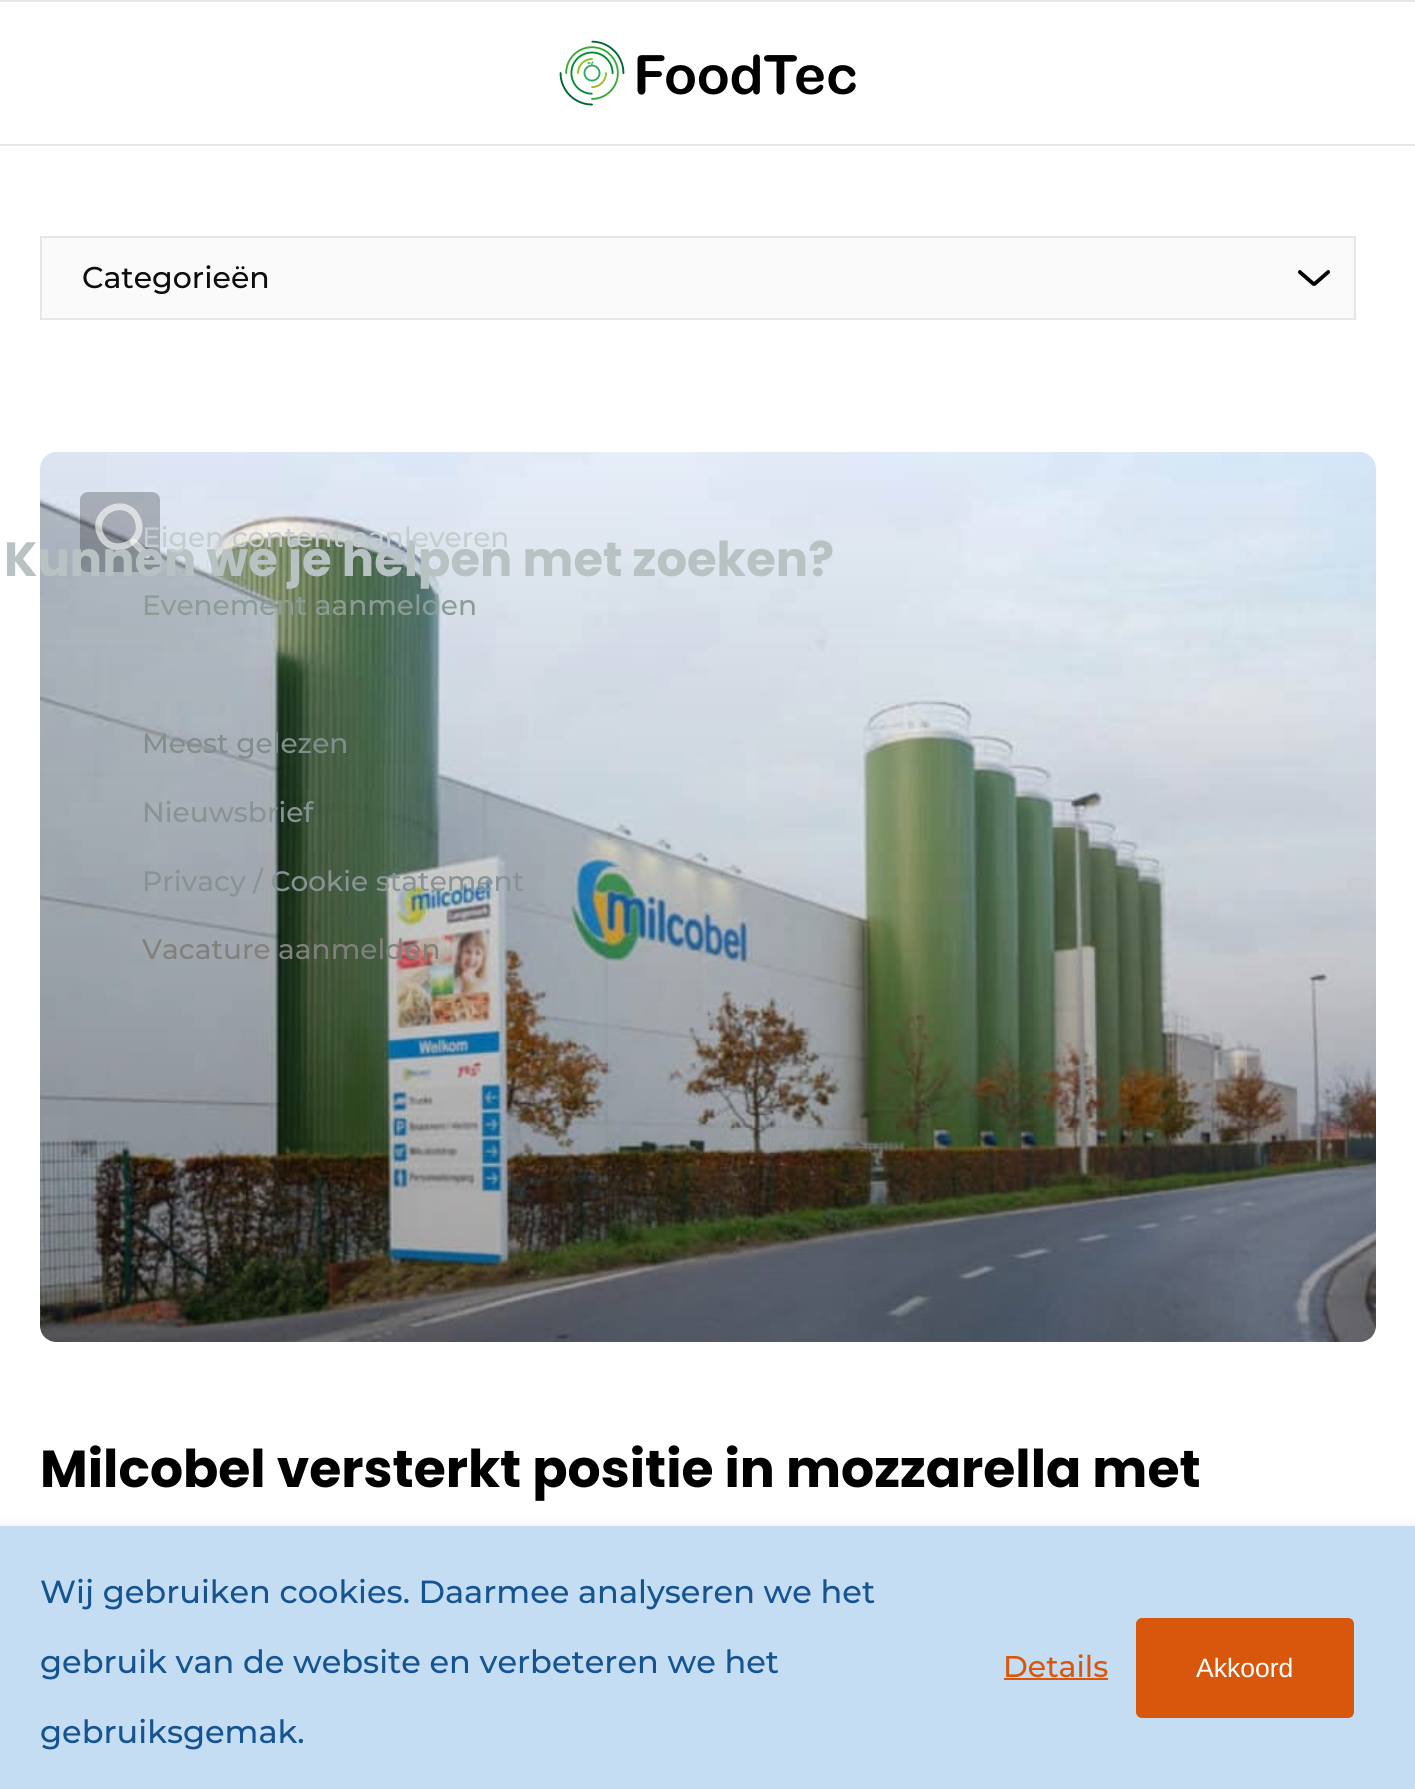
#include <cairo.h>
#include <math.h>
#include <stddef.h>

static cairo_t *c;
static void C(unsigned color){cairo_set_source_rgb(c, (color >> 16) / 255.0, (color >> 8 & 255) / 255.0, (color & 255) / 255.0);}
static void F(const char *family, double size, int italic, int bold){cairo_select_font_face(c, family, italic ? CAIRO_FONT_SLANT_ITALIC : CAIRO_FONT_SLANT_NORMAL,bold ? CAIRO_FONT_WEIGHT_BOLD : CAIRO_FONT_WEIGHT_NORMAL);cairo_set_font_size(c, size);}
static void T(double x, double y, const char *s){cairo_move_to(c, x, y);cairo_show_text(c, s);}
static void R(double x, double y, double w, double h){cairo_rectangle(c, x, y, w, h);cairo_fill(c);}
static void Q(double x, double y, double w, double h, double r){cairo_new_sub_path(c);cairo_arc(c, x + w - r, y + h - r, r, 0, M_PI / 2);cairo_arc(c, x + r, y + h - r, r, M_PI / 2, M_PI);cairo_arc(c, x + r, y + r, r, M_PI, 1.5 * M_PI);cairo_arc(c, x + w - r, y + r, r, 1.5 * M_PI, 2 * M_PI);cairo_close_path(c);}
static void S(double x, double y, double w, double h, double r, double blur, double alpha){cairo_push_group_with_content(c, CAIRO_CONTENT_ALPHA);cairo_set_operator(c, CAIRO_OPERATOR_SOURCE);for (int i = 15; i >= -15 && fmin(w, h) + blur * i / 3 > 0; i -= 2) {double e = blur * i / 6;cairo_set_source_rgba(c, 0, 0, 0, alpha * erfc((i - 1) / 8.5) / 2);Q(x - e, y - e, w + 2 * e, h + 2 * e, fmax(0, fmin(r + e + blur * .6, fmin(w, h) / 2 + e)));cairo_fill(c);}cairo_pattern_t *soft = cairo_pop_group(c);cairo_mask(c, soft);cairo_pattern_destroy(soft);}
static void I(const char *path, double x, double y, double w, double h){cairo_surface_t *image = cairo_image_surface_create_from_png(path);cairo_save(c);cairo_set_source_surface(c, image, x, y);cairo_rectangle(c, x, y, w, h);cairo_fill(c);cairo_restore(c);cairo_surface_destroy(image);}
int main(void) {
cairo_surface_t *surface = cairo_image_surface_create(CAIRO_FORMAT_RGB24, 1415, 1789);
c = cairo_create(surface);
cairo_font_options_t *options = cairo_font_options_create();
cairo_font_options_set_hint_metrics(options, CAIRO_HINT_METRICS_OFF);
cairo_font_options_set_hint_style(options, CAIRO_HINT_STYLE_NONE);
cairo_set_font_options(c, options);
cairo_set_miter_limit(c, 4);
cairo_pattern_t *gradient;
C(0xffffff);
cairo_paint(c);
C(0xfafafa);
R(42,238,1312,80);
I("1.png",1298,270,32,16);
cairo_rectangle(c,41,237,1314,82);
C(0xe6e6e6);
cairo_stroke(c);
F("Montserrat Medium",30,0,0);
C(0x0d0d0d);
T(82,288,"Categorieën");
C(0xe6e6e6);
R(0,0,1415,2);
I("2.png",559,40,297,66);
R(0,144,1415,2);
I("3.png",40,452,1336,890);
gradient = cairo_pattern_create_linear(708,452,708,1342);
cairo_pattern_add_color_stop_rgba(gradient,0,0,0,0,0);
cairo_pattern_add_color_stop_rgba(gradient,1,0,0,0,.3);
cairo_set_source(c,gradient);
cairo_pattern_destroy(gradient);
Q(40,452,1336,890,16);
cairo_fill(c);
cairo_set_source_rgba(c,0,0,0,0.24);
Q(80,492,80,80,8);
cairo_fill(c);
cairo_new_path(c);
cairo_move_to(c,100.5,534.5);
cairo_curve_to(c,111,559,147.5,543,137.5,519);
cairo_curve_to(c,127,494.5,90,510.5,100.5,534.5);
cairo_close_path(c);
cairo_set_source_rgba(c,1,1,1,0.6);
cairo_set_line_width(c,6.8);
cairo_set_line_cap(c,CAIRO_LINE_CAP_ROUND);
cairo_set_line_join(c,CAIRO_LINE_JOIN_ROUND);
cairo_stroke(c);
cairo_new_path(c);
cairo_move_to(c,133.5,542);
cairo_line_to(c,147,555);
cairo_stroke(c);
F("Poppins",48,0,1);
C(0xb8c2c3);
T(4,576,"Kunnen we je helpen met zoeken?");
F("Montserrat Medium",28,0,0);
C(0xc5ccce);
T(142,547,"Eigen content aanleveren");
C(0x8b9c96);
T(142,615,"Evenement aanmelden");
C(0x828e8b);
T(142,753,"Meest gelezen");
C(0x889394);
T(142,822,"Nieuwsbrief");
T(142,891,"Privacy / Cookie statement");
C(0x7f817a);
T(142,959,"Vacature aanmelden");
F("Poppins",52,0,1);
C(0x000000);
T(40,1487,"Milcobel versterkt positie in mozzarella met");
C(0x000000);
S(-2,1524,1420,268,0,6,.06);
C(0xc4ddf2);
R(0,1526,1415,263);
F("Montserrat Medium",32,0,0);
C(0x155391);
T(40,1603,"Wij gebruiken cookies. Daarmee analyseren we het");
T(40,1673,"gebruik van de website en verbeteren we het");
T(40,1743,"gebruiksgemak.");
F("Montserrat Medium",30,0,0);
C(0xd9570c);
T(1003,1677,"Details");
R(1004,1678,104,2);
Q(1136,1618,218,100,6);
cairo_fill(c);
F("Liberation Sans",26.5,0,0);
C(0xffffff);
T(1196,1677,"Akkoord");
cairo_surface_write_to_png(surface, "o.png");
cairo_font_options_destroy(options);
cairo_destroy(c);
cairo_surface_destroy(surface);
return 0;
}
